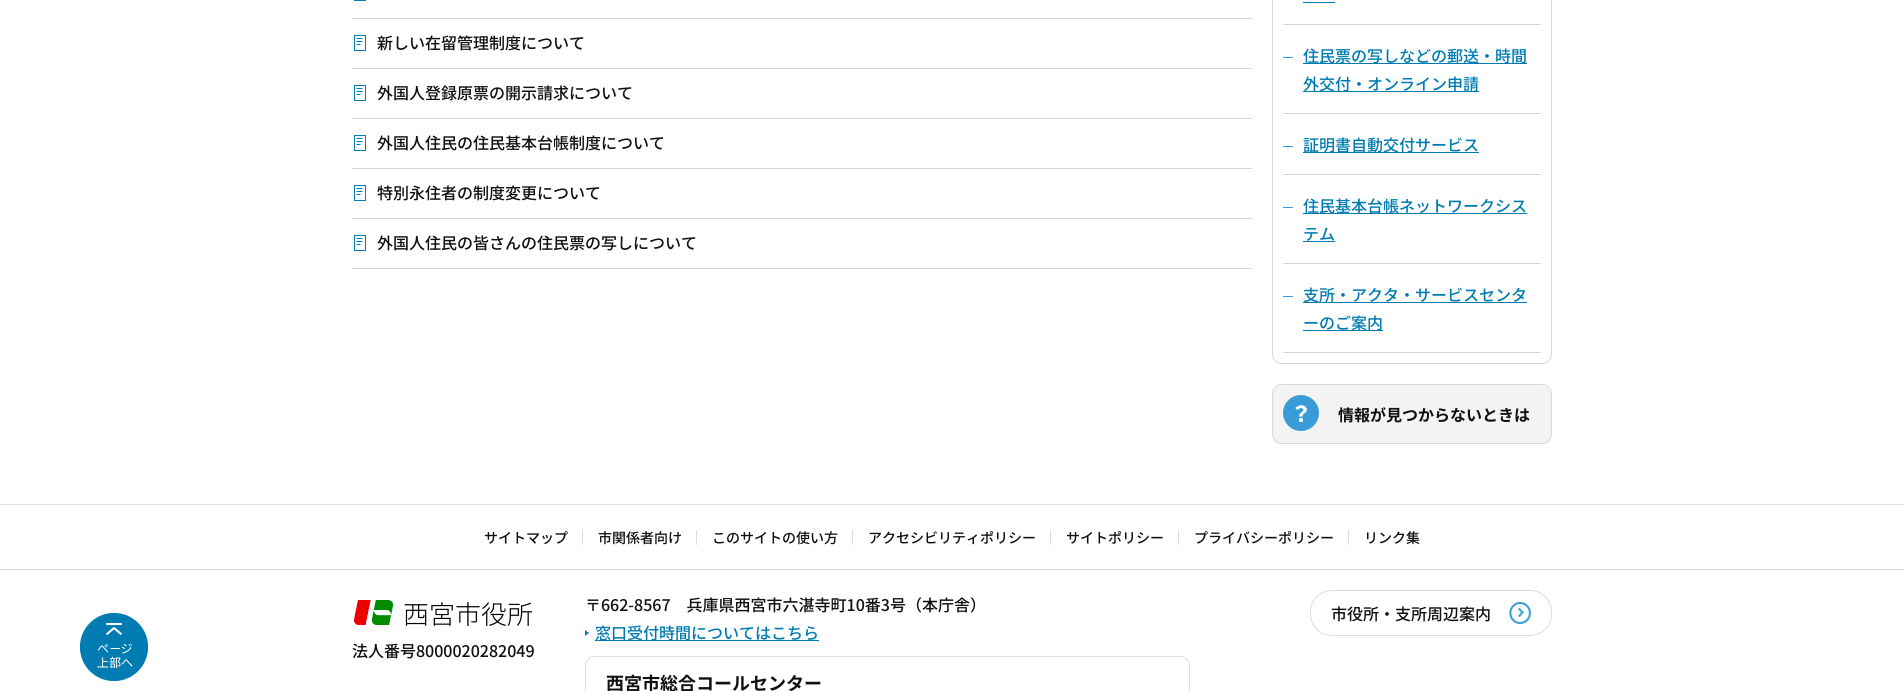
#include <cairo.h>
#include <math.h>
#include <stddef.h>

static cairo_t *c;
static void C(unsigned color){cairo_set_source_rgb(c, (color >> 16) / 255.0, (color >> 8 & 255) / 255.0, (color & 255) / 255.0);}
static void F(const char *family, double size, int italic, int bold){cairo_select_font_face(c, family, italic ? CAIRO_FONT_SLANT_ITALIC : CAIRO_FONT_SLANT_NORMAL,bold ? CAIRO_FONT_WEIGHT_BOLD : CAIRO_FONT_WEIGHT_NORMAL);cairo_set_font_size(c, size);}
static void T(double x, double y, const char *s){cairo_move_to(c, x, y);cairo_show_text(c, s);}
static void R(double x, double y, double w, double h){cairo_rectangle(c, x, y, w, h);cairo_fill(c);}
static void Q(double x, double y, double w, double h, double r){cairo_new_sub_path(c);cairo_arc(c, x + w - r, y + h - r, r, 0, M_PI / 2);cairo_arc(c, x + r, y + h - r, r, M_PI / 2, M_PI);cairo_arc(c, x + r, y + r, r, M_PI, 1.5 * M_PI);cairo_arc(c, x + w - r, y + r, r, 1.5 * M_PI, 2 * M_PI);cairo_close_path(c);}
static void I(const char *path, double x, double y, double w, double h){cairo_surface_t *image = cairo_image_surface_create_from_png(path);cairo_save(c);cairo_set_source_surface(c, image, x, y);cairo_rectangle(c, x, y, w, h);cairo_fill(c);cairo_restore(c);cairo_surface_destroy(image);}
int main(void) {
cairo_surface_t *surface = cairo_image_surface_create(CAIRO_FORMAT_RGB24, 1904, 691);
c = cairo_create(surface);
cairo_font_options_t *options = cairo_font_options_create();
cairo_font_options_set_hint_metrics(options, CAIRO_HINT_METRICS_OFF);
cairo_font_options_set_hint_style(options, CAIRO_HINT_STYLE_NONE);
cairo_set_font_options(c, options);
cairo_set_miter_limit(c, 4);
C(0xffffff);
cairo_paint(c);
C(0xd8d8d8);
R(352,18,900,1);
C(0x007cb2);
R(354,0,12,1);
C(0xd8d8d8);
R(352,68,900,1);
I("1.png",354,35,12,16);
F("Noto Sans JP Medium",16,0,0);
C(0x111111);
T(377,49,"新しい在留管理制度について");
C(0xd8d8d8);
R(352,118,900,1);
I("1.png",354,85,12,16);
C(0x111111);
T(377,99,"外国人登録原票の開示請求について");
C(0xd8d8d8);
R(352,168,900,1);
I("1.png",354,135,12,16);
C(0x111111);
T(377,149,"外国人住民の住民基本台帳制度について");
C(0xd8d8d8);
R(352,218,900,1);
I("1.png",354,185,12,16);
C(0x111111);
T(377,199,"特別永住者の制度変更について");
C(0xd8d8d8);
R(352,268,900,1);
I("1.png",354,235,12,16);
C(0x111111);
T(377,249,"外国人住民の皆さんの住民票の写しについて");
Q(1272.5,-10.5,279,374,9.5);
C(0xd8d8d8);
cairo_set_line_width(c,1);
cairo_stroke(c);
R(1283,24,258,1);
C(0x007cb2);
R(1303,2,32,1);
C(0xd8d8d8);
R(1283,113,258,1);
C(0x399bd8);
R(1283,57,10,1);
C(0x007cb2);
R(1303,63,224,1);
T(1303,62,"住民票の写しなどの郵送・時間");
R(1303,91,176,1);
T(1303,90,"外交付・オンライン申請");
C(0xd8d8d8);
R(1283,174,258,1);
C(0x399bd8);
R(1283,146,10,1);
C(0x007cb2);
R(1303,152,176,1);
T(1303,151,"証明書自動交付サービス");
C(0xd8d8d8);
R(1283,263,258,1);
C(0x399bd8);
R(1283,207,10,1);
C(0x007cb2);
R(1303,213,224,1);
T(1303,212,"住民基本台帳ネットワークシス");
T(1303,240,"テム");
R(1303,241,32,1);
C(0xd8d8d8);
R(1283,352,258,1);
C(0x399bd8);
R(1283,296,10,1);
C(0x007cb2);
R(1303,302,224,1);
T(1303,301,"支所・アクタ・サービスセンタ");
R(1303,330,80,1);
T(1303,329,"ーのご案内");
C(0xf3f3f1);
Q(1272.5,384.5,279,59,9.5);
cairo_fill_preserve(c);
C(0xd8d8d8);
cairo_stroke(c);
I("2.png",1283,395,36,36);
F("Noto Sans JP",16,0,1);
C(0x111111);
T(1338,421,"情報が見つからないときは");
C(0xdddddd);
R(0,504,1904,1);
R(0,569,1904,1);
F("Noto Sans JP Medium",14,0,0);
C(0x111111);
T(484,543,"サイトマップ");
C(0xdddddd);
R(582,530,1,15);
C(0x111111);
T(598,543,"市関係者向け");
C(0xdddddd);
R(696,530,1,15);
C(0x111111);
T(712,543,"このサイトの使い方");
C(0xdddddd);
R(852,530,1,15);
C(0x111111);
T(868,543,"アクセシビリティポリシー");
C(0xdddddd);
R(1050,530,1,15);
C(0x111111);
T(1066,543,"サイトポリシー");
C(0xdddddd);
R(1178,530,1,15);
C(0x111111);
T(1194,543,"プライバシーポリシー");
C(0xdddddd);
R(1348,530,1,15);
C(0x111111);
T(1364,543,"リンク集");
I("3.png",80,613,68,68);
I("4.png",354,600,39,25);
F("Noto Sans JP Light",26,0,0);
C(0x000000);
T(403,624,"西宮市役所");
F("Noto Sans JP Medium",16,0,0);
C(0x111111);
T(352,657,"法人番号8000020282049");
T(585,611,"〒662-8567　兵庫県西宮市六湛寺町10番3号（本庁舎）");
C(0x007cb2);
cairo_new_path(c);
cairo_move_to(c,585,636);
cairo_line_to(c,585,630);
cairo_line_to(c,589,633);
cairo_close_path(c);
cairo_fill(c);
R(595,640,224,1);
T(595,639,"窓口受付時間についてはこちら");
Q(585.5,656.5,604,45,9.5);
C(0xdddddd);
cairo_stroke(c);
F("Noto Sans JP",18,0,1);
C(0x111111);
T(606,690,"西宮市総合コールセンター");
I("5.png",1509,602,22,22);
Q(1310.5,590.5,241,45,21.5);
C(0xdddddd);
cairo_stroke(c);
F("Noto Sans JP Medium",16,0,0);
C(0x111111);
T(1331,620,"市役所・支所周辺案内");
cairo_surface_write_to_png(surface, "o.png");
cairo_font_options_destroy(options);
cairo_destroy(c);
cairo_surface_destroy(surface);
return 0;
}
